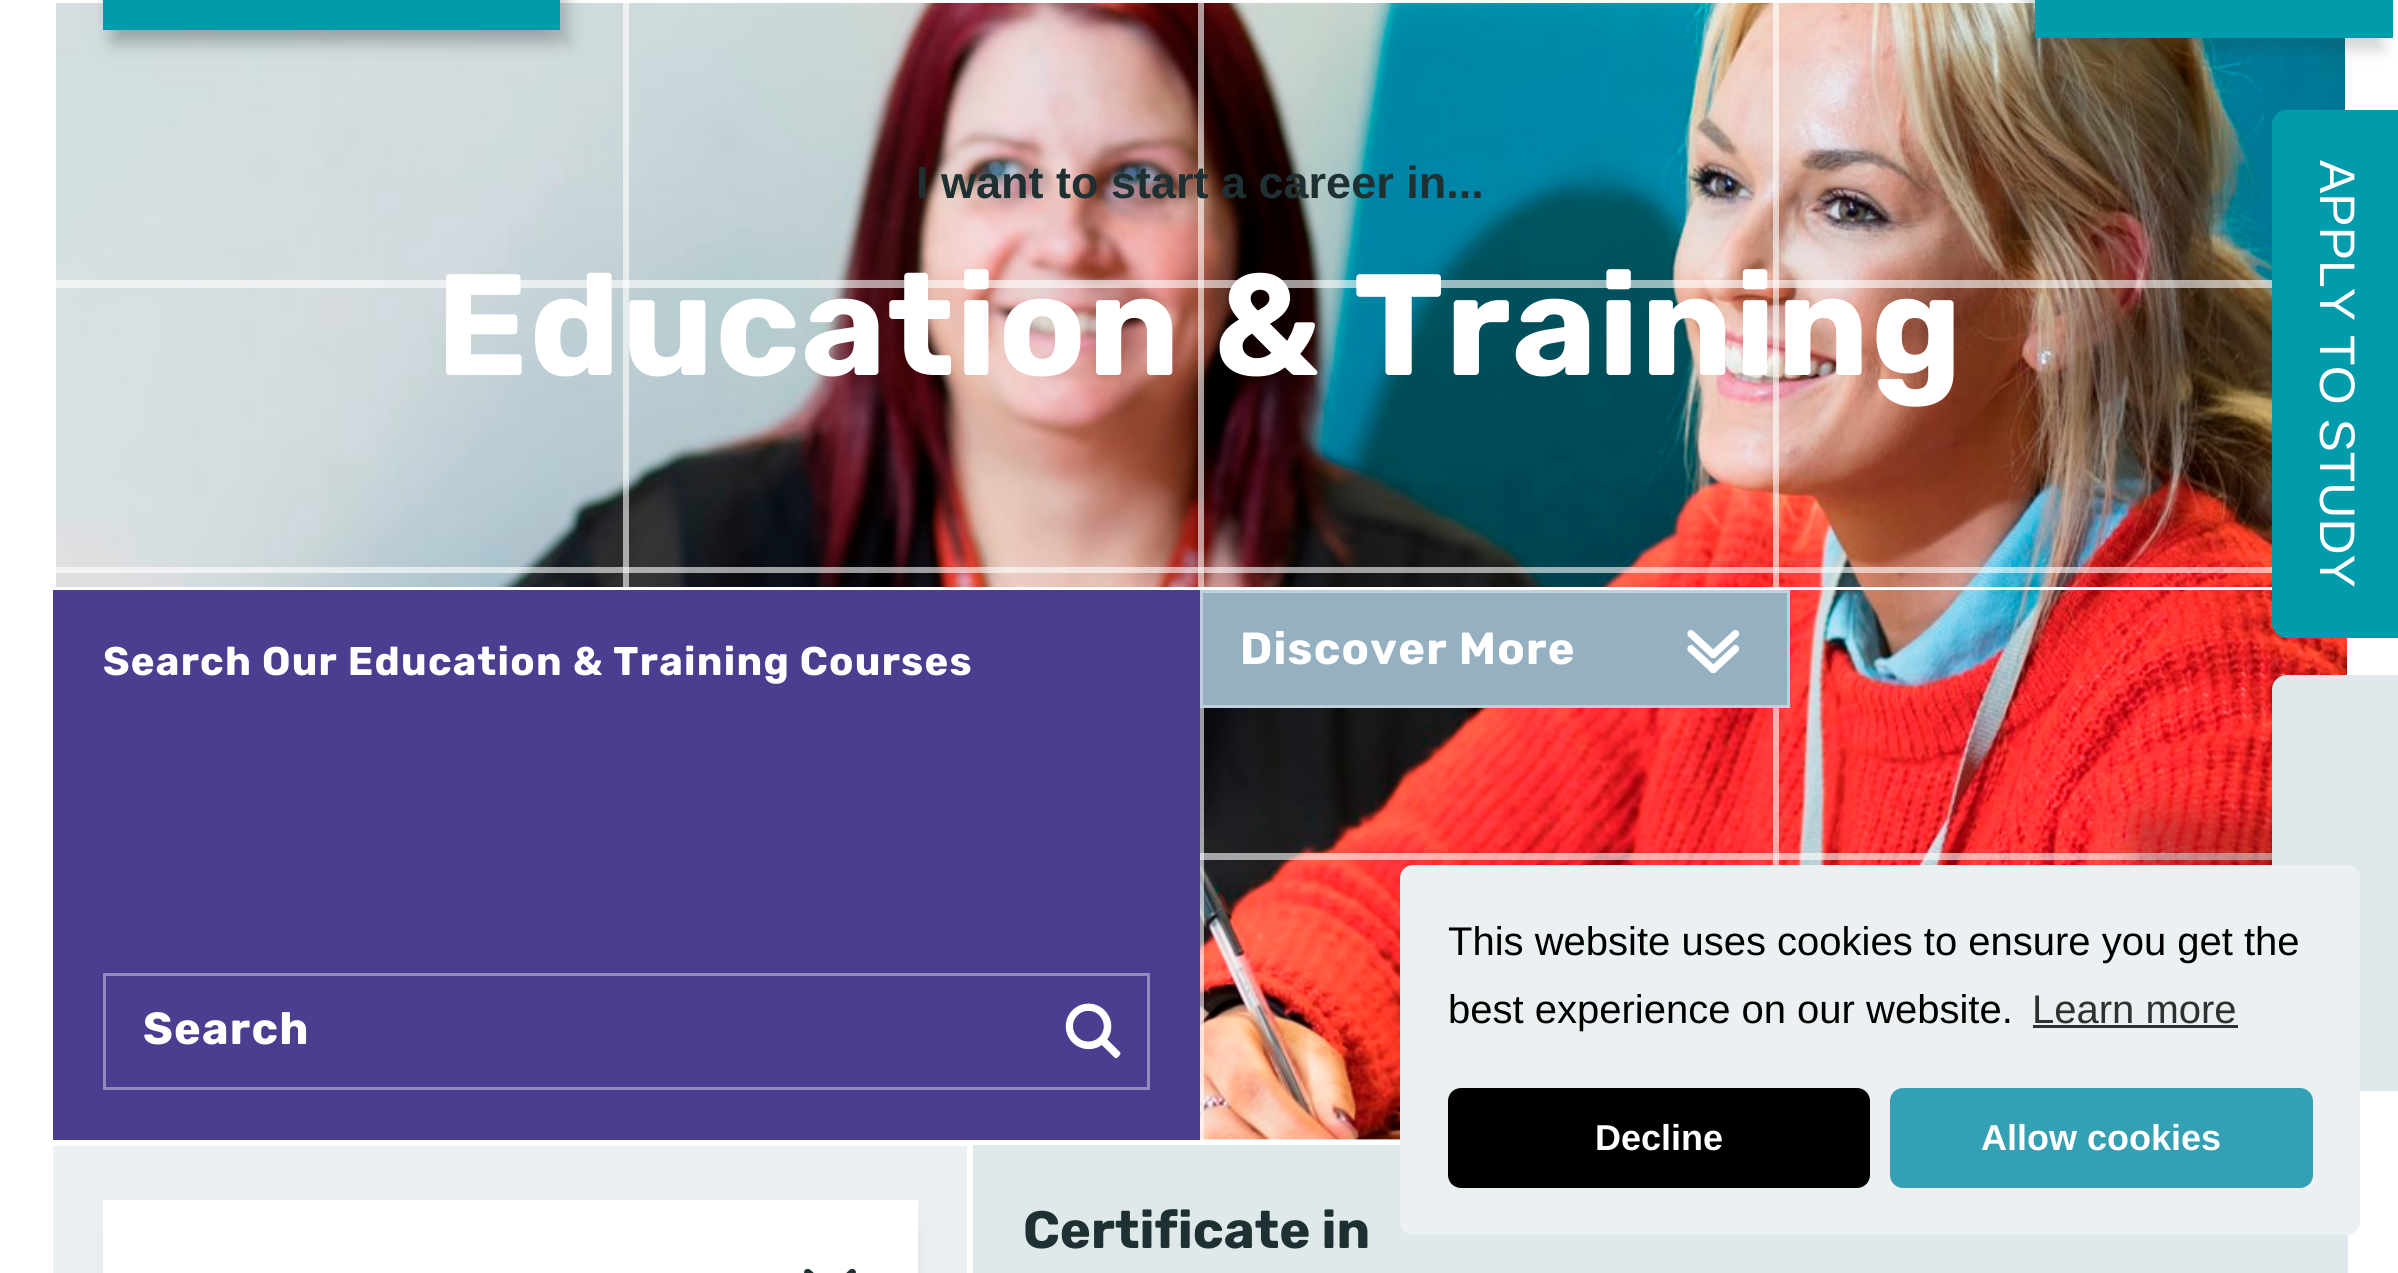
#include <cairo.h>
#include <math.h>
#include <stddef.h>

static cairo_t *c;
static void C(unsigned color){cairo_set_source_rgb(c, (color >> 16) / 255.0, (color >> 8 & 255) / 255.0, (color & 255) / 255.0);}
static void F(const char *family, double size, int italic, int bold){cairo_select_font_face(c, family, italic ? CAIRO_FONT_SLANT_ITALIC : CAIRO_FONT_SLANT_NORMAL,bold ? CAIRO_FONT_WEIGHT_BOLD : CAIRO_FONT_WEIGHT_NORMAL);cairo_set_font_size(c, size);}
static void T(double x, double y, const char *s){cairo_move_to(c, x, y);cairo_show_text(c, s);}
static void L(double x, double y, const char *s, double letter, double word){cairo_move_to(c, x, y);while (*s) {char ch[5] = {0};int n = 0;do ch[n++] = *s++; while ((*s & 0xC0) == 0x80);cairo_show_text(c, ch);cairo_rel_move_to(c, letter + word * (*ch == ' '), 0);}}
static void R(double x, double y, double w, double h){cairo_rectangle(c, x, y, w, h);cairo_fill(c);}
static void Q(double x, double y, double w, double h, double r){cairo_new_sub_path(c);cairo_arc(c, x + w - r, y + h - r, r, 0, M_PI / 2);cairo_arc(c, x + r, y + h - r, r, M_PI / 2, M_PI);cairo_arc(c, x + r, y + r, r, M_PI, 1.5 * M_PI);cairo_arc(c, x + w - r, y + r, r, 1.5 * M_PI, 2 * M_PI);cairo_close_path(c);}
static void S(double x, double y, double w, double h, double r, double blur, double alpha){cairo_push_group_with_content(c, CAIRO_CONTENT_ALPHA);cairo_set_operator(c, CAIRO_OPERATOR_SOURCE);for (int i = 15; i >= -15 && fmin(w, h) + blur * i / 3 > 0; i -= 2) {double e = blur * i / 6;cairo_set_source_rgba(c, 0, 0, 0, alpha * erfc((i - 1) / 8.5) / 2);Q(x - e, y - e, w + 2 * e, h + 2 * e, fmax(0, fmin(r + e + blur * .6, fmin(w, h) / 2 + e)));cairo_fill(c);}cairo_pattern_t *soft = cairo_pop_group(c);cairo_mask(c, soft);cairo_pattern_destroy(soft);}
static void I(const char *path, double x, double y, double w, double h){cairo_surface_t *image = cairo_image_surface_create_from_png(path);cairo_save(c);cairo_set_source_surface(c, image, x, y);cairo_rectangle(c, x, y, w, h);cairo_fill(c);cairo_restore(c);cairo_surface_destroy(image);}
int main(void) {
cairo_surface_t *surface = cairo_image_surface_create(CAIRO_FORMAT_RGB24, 2398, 1273);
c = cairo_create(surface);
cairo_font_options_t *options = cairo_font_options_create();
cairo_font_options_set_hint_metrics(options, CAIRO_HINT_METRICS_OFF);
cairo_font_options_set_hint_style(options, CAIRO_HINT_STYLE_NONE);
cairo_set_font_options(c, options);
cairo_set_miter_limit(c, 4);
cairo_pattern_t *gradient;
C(0xffffff);
cairo_paint(c);
I("1.png",52,0,2295,1140);
cairo_new_path(c);
cairo_move_to(c,60,-.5);
cairo_line_to(c,2340,-.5);
cairo_curve_to(c,2344.5,-.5,2348.5,3.5,2348.5,8);
cairo_line_to(c,2348.5,1141.5);
cairo_line_to(c,51.5,1141.5);
cairo_line_to(c,51.5,8);
cairo_curve_to(c,51.5,3.5,55.5,-.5,60,-.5);
cairo_close_path(c);
C(0xffffff);
cairo_set_line_width(c,3);
cairo_stroke(c);
gradient = cairo_pattern_create_linear(335,286,335,0);
cairo_pattern_add_color_stop_rgba(gradient,0,1,1,1,.6);
cairo_pattern_add_color_stop_rgba(gradient,.02,1,1,1,.6);
cairo_pattern_add_color_stop_rgba(gradient,.02,1,1,1,0);
cairo_pattern_add_color_stop_rgba(gradient,1,0,0,0,0);
cairo_set_source(c,gradient);
cairo_pattern_destroy(gradient);
R(48,280,2224,8);
gradient = cairo_pattern_create_linear(335,573,335,286);
cairo_pattern_add_color_stop_rgba(gradient,0,1,1,1,.6);
cairo_pattern_add_color_stop_rgba(gradient,.02,1,1,1,.6);
cairo_pattern_add_color_stop_rgba(gradient,.02,1,1,1,0);
cairo_pattern_add_color_stop_rgba(gradient,1,0,0,0,0);
cairo_set_source(c,gradient);
cairo_pattern_destroy(gradient);
R(48,567,2224,6);
gradient = cairo_pattern_create_linear(335,859,335,573);
cairo_pattern_add_color_stop_rgba(gradient,0,1,1,1,.6);
cairo_pattern_add_color_stop_rgba(gradient,.02,1,1,1,.6);
cairo_pattern_add_color_stop_rgba(gradient,.02,1,1,1,0);
cairo_pattern_add_color_stop_rgba(gradient,1,0,0,0,0);
cairo_set_source(c,gradient);
cairo_pattern_destroy(gradient);
R(48,853,2224,7);
gradient = cairo_pattern_create_linear(335,1145,335,859);
cairo_pattern_add_color_stop_rgba(gradient,0,1,1,1,.6);
cairo_pattern_add_color_stop_rgba(gradient,.02,1,1,1,.6);
cairo_pattern_add_color_stop_rgba(gradient,.02,1,1,1,0);
cairo_pattern_add_color_stop_rgba(gradient,1,0,0,0,0);
cairo_set_source(c,gradient);
cairo_pattern_destroy(gradient);
R(48,1139,1352,1);
gradient = cairo_pattern_create_linear(48,143,623,143);
cairo_pattern_add_color_stop_rgba(gradient,0,1,1,1,.6);
cairo_pattern_add_color_stop_rgba(gradient,.01,1,1,1,.6);
cairo_pattern_add_color_stop_rgba(gradient,.01,1,1,1,0);
cairo_pattern_add_color_stop_rgba(gradient,1,0,0,0,0);
cairo_set_source(c,gradient);
cairo_pattern_destroy(gradient);
R(52,0,2,1145);
gradient = cairo_pattern_create_linear(623,143,1198,143);
cairo_pattern_add_color_stop_rgba(gradient,0,1,1,1,.6);
cairo_pattern_add_color_stop_rgba(gradient,.01,1,1,1,.6);
cairo_pattern_add_color_stop_rgba(gradient,.01,1,1,1,0);
cairo_pattern_add_color_stop_rgba(gradient,1,0,0,0,0);
cairo_set_source(c,gradient);
cairo_pattern_destroy(gradient);
R(623,3,6,1142);
gradient = cairo_pattern_create_linear(1198,143,1773,143);
cairo_pattern_add_color_stop_rgba(gradient,0,1,1,1,.6);
cairo_pattern_add_color_stop_rgba(gradient,.01,1,1,1,.6);
cairo_pattern_add_color_stop_rgba(gradient,.01,1,1,1,0);
cairo_pattern_add_color_stop_rgba(gradient,1,0,0,0,0);
cairo_set_source(c,gradient);
cairo_pattern_destroy(gradient);
R(1198,3,6,1142);
gradient = cairo_pattern_create_linear(1773,143,2348,143);
cairo_pattern_add_color_stop_rgba(gradient,0,1,1,1,.6);
cairo_pattern_add_color_stop_rgba(gradient,.01,1,1,1,.6);
cairo_pattern_add_color_stop_rgba(gradient,.01,1,1,1,0);
cairo_pattern_add_color_stop_rgba(gradient,1,0,0,0,0);
cairo_set_source(c,gradient);
cairo_pattern_destroy(gradient);
R(1773,3,6,862);
cairo_rectangle(c,54.5,1.5,2292,587);
C(0xffffff);
cairo_stroke(c);
C(0x009cab);
R(103,0,457,30);
cairo_save(c);
cairo_set_fill_rule(c,CAIRO_FILL_RULE_EVEN_ODD);
cairo_new_path(c);
cairo_move_to(c,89,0);
cairo_line_to(c,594,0);
cairo_line_to(c,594,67);
cairo_line_to(c,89,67);
cairo_close_path(c);
cairo_move_to(c,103,-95);
cairo_line_to(c,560,-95);
cairo_line_to(c,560,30);
cairo_line_to(c,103,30);
cairo_close_path(c);
cairo_clip(c);
C(0x1e3031);
S(113,-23,457,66,0,7.5,.2);
cairo_restore(c);
cairo_save(c);
cairo_set_fill_rule(c,CAIRO_FILL_RULE_EVEN_ODD);
cairo_new_path(c);
cairo_move_to(c,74,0);
cairo_line_to(c,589,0);
cairo_line_to(c,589,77);
cairo_line_to(c,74,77);
cairo_close_path(c);
cairo_move_to(c,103,-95);
cairo_line_to(c,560,-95);
cairo_line_to(c,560,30);
cairo_line_to(c,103,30);
cairo_close_path(c);
cairo_clip(c);
C(0x1e3031);
S(113,-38,437,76,0,12.5,.2);
cairo_restore(c);
C(0x1e3031);
S(2025,-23,358,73,0,7.5,.2);
C(0x009cab);
R(2035,0,358,38);
F("Liberation Sans",45,0,1);
C(0x1e3031);
T(916,198,"I want to start a career in...");
F("Rubik",144,0,1);
C(0xffffff);
L(436,375,"Education & Training",1.25,0);
C(0x4b3e91);
R(53,590,1147,550);
F("Rubik",40,0,1);
C(0xffffff);
L(103,675,"Search Our Education & Training Courses",1.25,0);
cairo_rectangle(c,104.5,974.5,1044,114);
C(0x938bbd);
cairo_stroke(c);
F("Rubik",45,0,1);
C(0xffffff);
L(143,1044,"Search",1.25,0);
I("2.png",1065,1003,56,56);
C(0x95b0c1);
cairo_rectangle(c,1201.5,591.5,587,115);
cairo_fill_preserve(c);
C(0xbfd0da);
cairo_stroke(c);
C(0xffffff);
L(1240,664,"Discover More",1.25,0);
cairo_new_path(c);
cairo_move_to(c,1688.5,631);
cairo_curve_to(c,1689.5,629.5,1692,629.5,1693.5,631);
cairo_line_to(c,1715.5,651.5);
cairo_curve_to(c,1717,653,1717,655.5,1716,657);
cairo_curve_to(c,1714.5,658.5,1712,658.5,1710.5,657);
cairo_line_to(c,1688.5,636.5);
cairo_curve_to(c,1687,635,1687,632.5,1688.5,631);
cairo_close_path(c);
cairo_fill(c);
cairo_new_path(c);
cairo_move_to(c,1710.5,657);
cairo_curve_to(c,1709,655.5,1709.5,653,1711,651.5);
cairo_line_to(c,1733,631);
cairo_curve_to(c,1734.5,629.5,1736.5,629.5,1738,631);
cairo_curve_to(c,1739.5,632.5,1739.5,635,1738,636.5);
cairo_line_to(c,1716,657);
cairo_curve_to(c,1714.5,658.5,1712,658.5,1710.5,657);
cairo_close_path(c);
cairo_fill(c);
cairo_new_path(c);
cairo_move_to(c,1688.5,646);
cairo_curve_to(c,1689.5,644.5,1692,644.5,1693.5,646);
cairo_line_to(c,1715.5,666.5);
cairo_curve_to(c,1717,668,1717,670.5,1716,672);
cairo_curve_to(c,1714.5,673.5,1712,673.5,1710.5,672);
cairo_line_to(c,1688.5,651.5);
cairo_curve_to(c,1687,650,1687,647.5,1688.5,646);
cairo_close_path(c);
cairo_fill(c);
cairo_new_path(c);
cairo_move_to(c,1710.5,672);
cairo_curve_to(c,1709,670.5,1709.5,668,1711,666.5);
cairo_line_to(c,1733,646);
cairo_curve_to(c,1734.5,644.5,1736.5,644.5,1738,646);
cairo_curve_to(c,1739.5,647.5,1739.5,650,1738,651.5);
cairo_line_to(c,1716,672);
cairo_curve_to(c,1714.5,673.5,1712,673.5,1710.5,672);
cairo_close_path(c);
cairo_fill(c);
C(0x000000);
S(2078,305,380,128,15,15,.2);
C(0x009cab);
cairo_new_path(c);
cairo_move_to(c,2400,110);
cairo_line_to(c,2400,638);
cairo_line_to(c,2287,638);
cairo_curve_to(c,2279,638,2272,631,2272,623);
cairo_line_to(c,2272,125);
cairo_curve_to(c,2272,116,2279,110,2287,110);
cairo_close_path(c);
cairo_fill(c);
F("Liberation Sans",50,0,0);
C(0xffffff);
cairo_save(c);
cairo_translate(c,2320,160);
cairo_rotate(c,90 * M_PI / 180);
T(0,0,"APPLY TO STUDY");
cairo_restore(c);
C(0x000000);
S(2133,815,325,128,15,15,.2);
C(0xdfe8ea);
cairo_new_path(c);
cairo_move_to(c,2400,675);
cairo_line_to(c,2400,1091);
cairo_line_to(c,2287,1091);
cairo_curve_to(c,2279,1091,2272,1085,2272,1076);
cairo_line_to(c,2272,690);
cairo_curve_to(c,2272,681,2279,675,2287,675);
cairo_close_path(c);
cairo_fill(c);
C(0xebf1f2);
R(53,1146,914,127);
C(0x1e3031);
S(118,1233,790,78,0,12.5,.2);
C(0xffffff);
R(103,1200,815,73);
C(0x1e3031);
cairo_new_path(c);
cairo_move_to(c,805,1270);
cairo_curve_to(c,806.5,1268.5,809,1268.5,810.5,1270);
cairo_line_to(c,832.5,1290);
cairo_curve_to(c,834,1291.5,834,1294,832.5,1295.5);
cairo_curve_to(c,831,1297,829,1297,827.5,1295.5);
cairo_line_to(c,805.5,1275.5);
cairo_curve_to(c,804,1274,803.5,1271.5,805,1270);
cairo_close_path(c);
cairo_move_to(c,827.5,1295.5);
cairo_curve_to(c,826,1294,826,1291.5,827.5,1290);
cairo_line_to(c,849.5,1270);
cairo_curve_to(c,851,1268.5,853.5,1268.5,855,1270);
cairo_curve_to(c,856.5,1271.5,856,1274,854.5,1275.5);
cairo_line_to(c,832.5,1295.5);
cairo_curve_to(c,831,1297,829,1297,827.5,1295.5);
cairo_close_path(c);
cairo_fill(c);
C(0xdfe8ea);
R(973,1145,1375,128);
F("Rubik",52.5,0,1);
C(0x1e3031);
T(1023,1248,"Certificate in");
C(0xebf1f2);
Q(1400,865,960,370,13);
cairo_fill(c);
F("Liberation Sans",40,0,0);
C(0x000000);
T(1448,955,"This website uses cookies to ensure you get the");
T(1448,1023,"best experience on our website.");
C(0x2f3030);
T(2032,1023,"Learn more");
R(2033,1025,205,3);
C(0x000000);
Q(1448,1088,422,100,13);
cairo_fill(c);
F("Liberation Sans",36,0,1);
C(0xffffff);
T(1595,1150,"Decline");
C(0x33a0b4);
Q(1890,1088,423,100,13);
cairo_fill(c);
C(0xffffff);
T(1981,1150,"Allow cookies");
cairo_surface_write_to_png(surface, "o.png");
cairo_font_options_destroy(options);
cairo_destroy(c);
cairo_surface_destroy(surface);
return 0;
}
